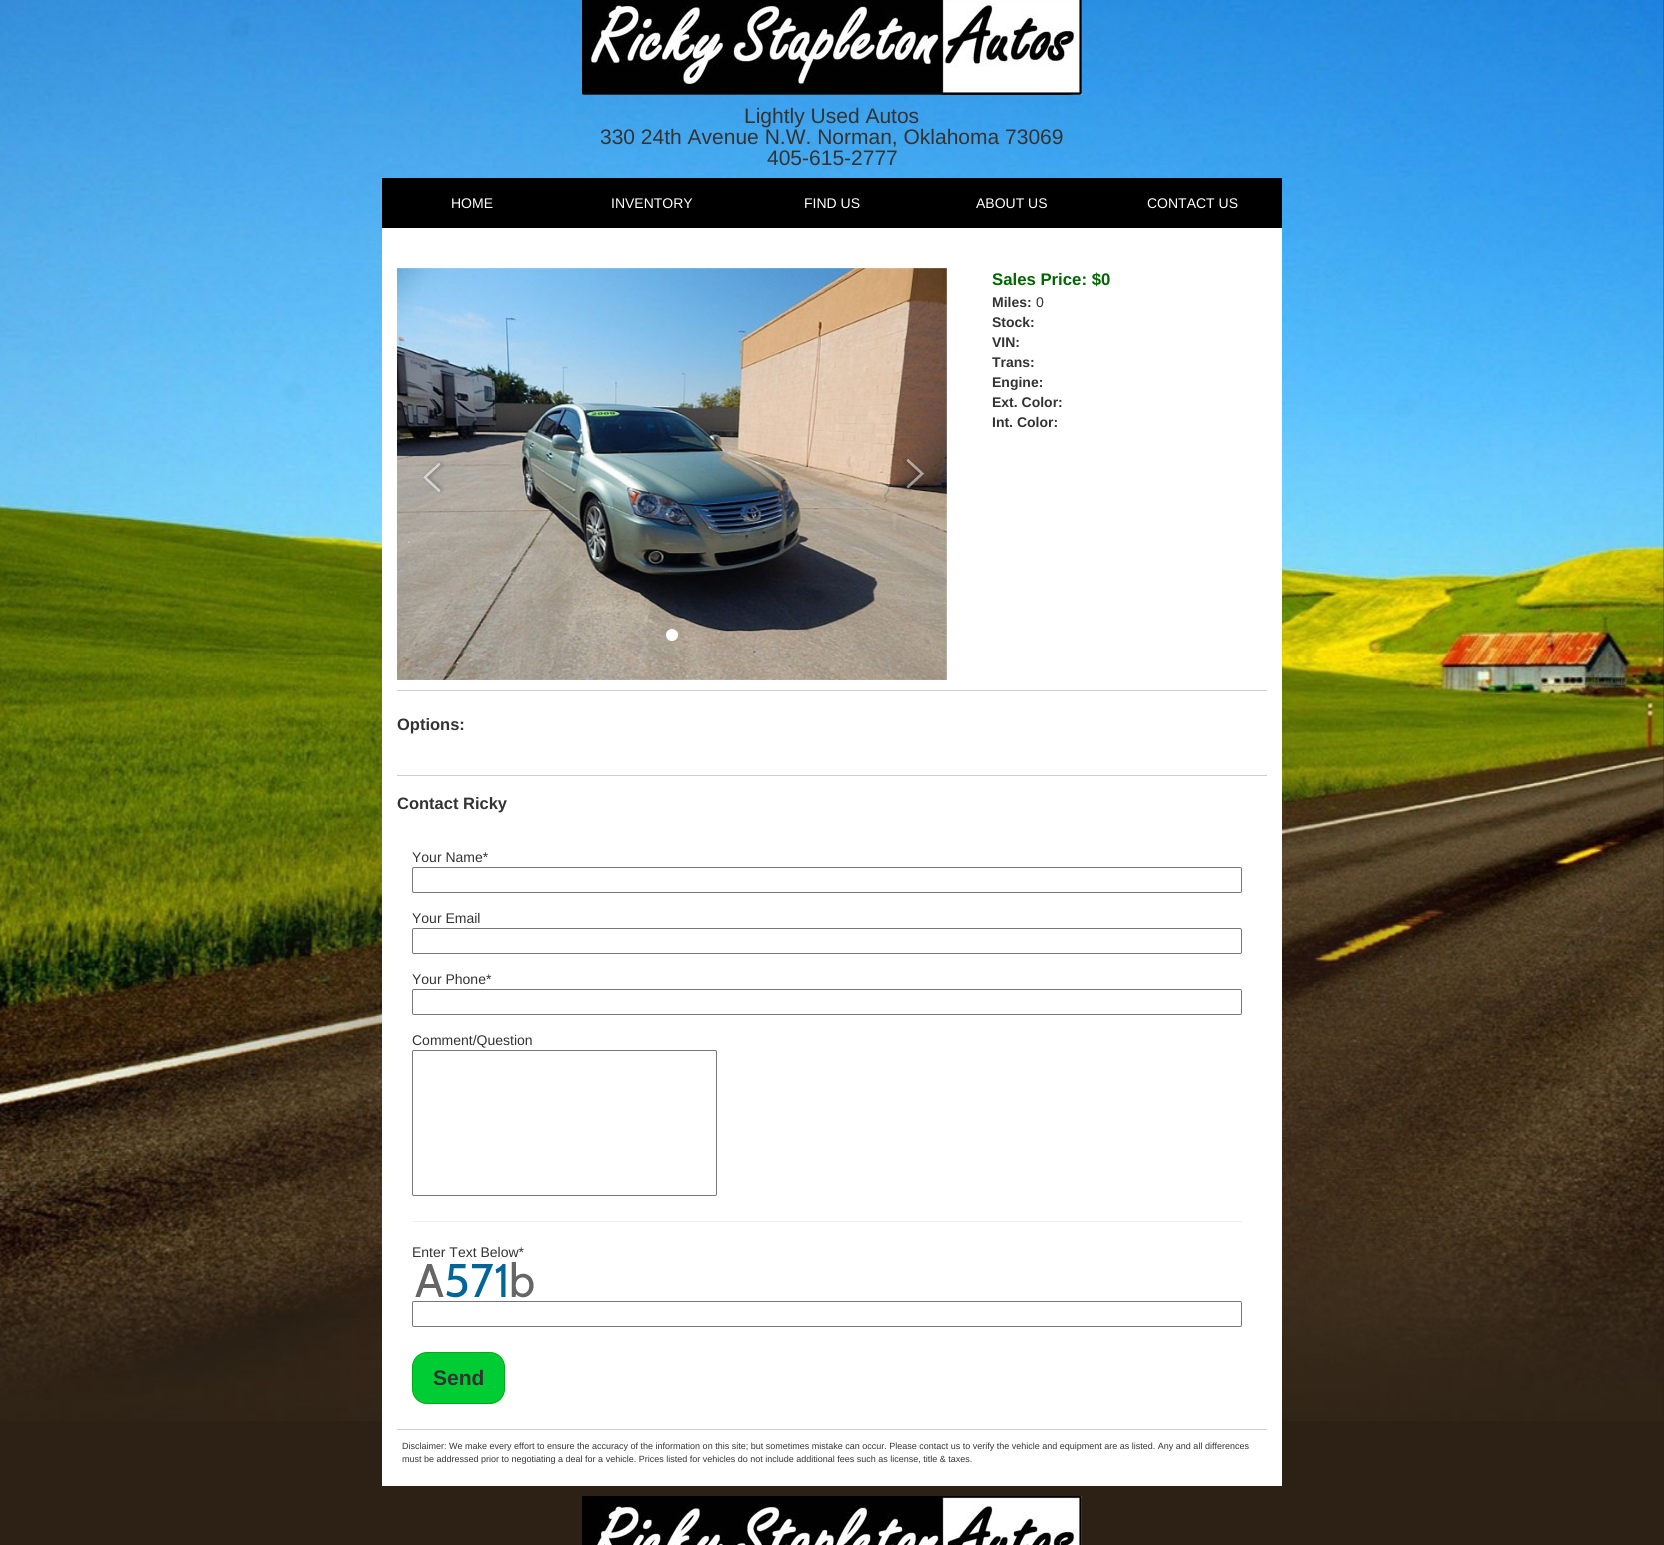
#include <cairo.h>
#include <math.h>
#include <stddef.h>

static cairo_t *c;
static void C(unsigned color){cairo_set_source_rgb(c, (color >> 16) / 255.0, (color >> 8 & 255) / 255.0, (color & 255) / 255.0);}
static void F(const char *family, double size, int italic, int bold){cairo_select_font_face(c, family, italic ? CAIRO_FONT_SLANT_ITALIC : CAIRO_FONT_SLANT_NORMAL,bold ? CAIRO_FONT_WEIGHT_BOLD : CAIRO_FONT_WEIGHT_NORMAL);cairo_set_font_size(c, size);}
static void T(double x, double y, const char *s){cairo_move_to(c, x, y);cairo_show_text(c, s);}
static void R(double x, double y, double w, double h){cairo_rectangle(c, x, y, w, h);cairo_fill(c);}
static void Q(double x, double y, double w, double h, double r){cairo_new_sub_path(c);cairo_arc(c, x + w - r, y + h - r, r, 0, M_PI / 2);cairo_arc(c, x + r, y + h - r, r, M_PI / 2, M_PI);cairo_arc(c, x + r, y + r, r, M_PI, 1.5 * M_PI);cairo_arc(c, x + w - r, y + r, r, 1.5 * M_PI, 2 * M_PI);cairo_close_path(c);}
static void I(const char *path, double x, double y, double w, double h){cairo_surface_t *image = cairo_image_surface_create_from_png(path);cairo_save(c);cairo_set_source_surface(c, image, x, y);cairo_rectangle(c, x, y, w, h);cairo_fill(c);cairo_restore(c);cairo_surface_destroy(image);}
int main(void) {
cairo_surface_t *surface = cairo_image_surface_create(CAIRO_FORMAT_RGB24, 1664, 1545);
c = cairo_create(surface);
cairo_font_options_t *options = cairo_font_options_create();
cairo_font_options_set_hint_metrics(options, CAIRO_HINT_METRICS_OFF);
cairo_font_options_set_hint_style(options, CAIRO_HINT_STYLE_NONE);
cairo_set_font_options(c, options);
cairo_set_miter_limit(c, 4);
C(0x2d2115);
cairo_paint(c);
I("1.png",0,0,1664,1421);
I("2.png",582,0,500,95);
F("Liberation Sans",21,0,0);
C(0x333333);
T(744,123,"Lightly Used Autos");
T(600,144,"330 24th Avenue N.W. Norman, Oklahoma 73069");
T(767,165,"405-615-2777");
C(0x000000);
R(382,178,900,50);
F("Liberation Sans",14,0,0);
C(0xffffff);
T(451,208,"HOME");
T(611,208,"INVENTORY");
T(804,208,"FIND US");
T(976,208,"ABOUT US");
T(1147,208,"CONTACT US");
R(382,228,900,1258);
I("3.png",397,268,550,412);
I("4.png",422,460,23,35);
I("5.png",903,458,22,33);
cairo_arc(c,672,635,5.5,0,2 * M_PI);
cairo_fill_preserve(c);
cairo_set_line_width(c,1);
cairo_stroke(c);
F("Liberation Sans",16.75,0,1);
C(0x006600);
T(992,285,"Sales Price: $0");
F("Liberation Sans",14,0,1);
C(0x333333);
T(992,307,"Miles:");
F("Liberation Sans",14,0,0);
T(1036,307,"0");
F("Liberation Sans",14,0,1);
T(992,327,"Stock:");
T(992,347,"VIN:");
T(992,367,"Trans:");
T(992,387,"Engine:");
T(992,407,"Ext. Color:");
T(992,427,"Int. Color:");
C(0xcccccc);
R(397,690,870,1);
R(397,775,870,1);
F("Liberation Sans",16.5,0,1);
C(0x333333);
T(397,730,"Options:");
T(397,809,"Contact Ricky");
F("Liberation Sans",14,0,0);
T(412,862,"Your Name*");
Q(412.5,867.5,829,25,1.5);
C(0x767676);
cairo_stroke(c);
C(0x333333);
T(412,923,"Your Email");
Q(412.5,928.5,829,25,1.5);
C(0x767676);
cairo_stroke(c);
C(0x333333);
T(412,984,"Your Phone*");
Q(412.5,989.5,829,25,1.5);
C(0x767676);
cairo_stroke(c);
C(0x333333);
T(412,1045,"Comment/Question");
Q(412.5,1050.5,304,145,1.5);
C(0x767676);
cairo_stroke(c);
C(0xeeeeee);
R(412,1221,830,1);
C(0x333333);
T(412,1257,"Enter Text Below*");
I("6.png",415,1262,119,36);
Q(412.5,1301.5,829,25,1.5);
C(0x767676);
cairo_stroke(c);
C(0x00cc33);
Q(412.5,1352.5,92,51,14.5);
cairo_fill_preserve(c);
C(0x00aa11);
cairo_stroke(c);
F("Liberation Sans",21,0,1);
C(0x333333);
T(433,1385,"Send");
C(0xcccccc);
R(397,1429,870,1);
F("Liberation Sans",9,0,0);
C(0x333333);
T(402,1449,"Disclaimer: We make every effort to ensure the accuracy of the information on this site; but sometimes mistake can occur. Please contact us to verify the vehicle and equipment are as listed. Any and all differences");
T(402,1462,"must be addressed prior to negotiating a deal for a vehicle. Prices listed for vehicles do not include additional fees such as license, title & taxes.");
I("7.png",582,1496,500,49);
cairo_surface_write_to_png(surface, "o.png");
cairo_font_options_destroy(options);
cairo_destroy(c);
cairo_surface_destroy(surface);
return 0;
}
